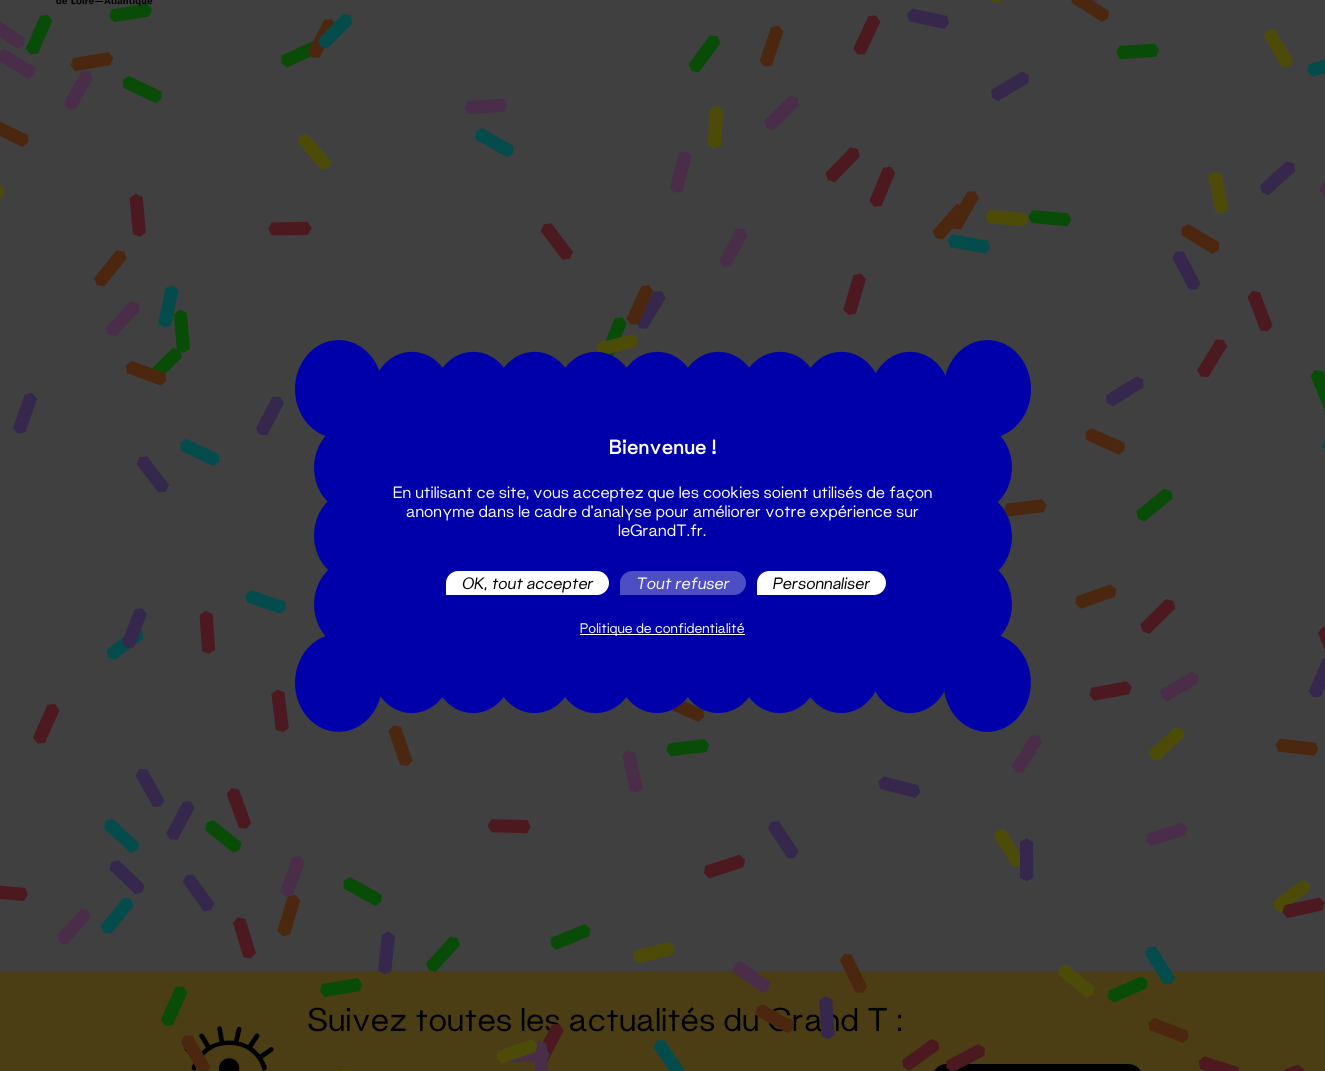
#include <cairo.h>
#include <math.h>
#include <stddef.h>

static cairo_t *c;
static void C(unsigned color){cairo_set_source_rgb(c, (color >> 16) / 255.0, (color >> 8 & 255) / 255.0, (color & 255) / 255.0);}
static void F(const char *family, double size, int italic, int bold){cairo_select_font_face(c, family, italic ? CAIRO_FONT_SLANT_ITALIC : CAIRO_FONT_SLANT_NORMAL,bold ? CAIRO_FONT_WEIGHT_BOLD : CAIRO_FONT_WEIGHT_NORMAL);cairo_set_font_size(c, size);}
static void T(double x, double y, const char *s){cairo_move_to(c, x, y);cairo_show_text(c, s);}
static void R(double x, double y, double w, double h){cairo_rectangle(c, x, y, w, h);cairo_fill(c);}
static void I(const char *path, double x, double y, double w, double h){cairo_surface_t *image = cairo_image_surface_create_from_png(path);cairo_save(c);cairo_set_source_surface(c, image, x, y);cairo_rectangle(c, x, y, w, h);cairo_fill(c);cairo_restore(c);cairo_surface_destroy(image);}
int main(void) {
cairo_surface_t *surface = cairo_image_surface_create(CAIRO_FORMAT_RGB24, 1325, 1071);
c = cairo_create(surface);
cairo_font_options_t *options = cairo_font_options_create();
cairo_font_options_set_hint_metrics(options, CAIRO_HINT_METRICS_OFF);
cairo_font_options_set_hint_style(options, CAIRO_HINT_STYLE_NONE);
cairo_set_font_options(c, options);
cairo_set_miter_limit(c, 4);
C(0x404040);
cairo_paint(c);
C(0x4c3e14);
R(0,971,1325,100);
F("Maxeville",32,0,0);
C(0x000000);
T(307,1031,"Suivez toutes les actualités du Grand T :");
cairo_new_path(c);
cairo_move_to(c,946.5,1064);
cairo_line_to(c,1128.5,1064);
cairo_curve_to(c,1136.5,1064,1143,1070.5,1143,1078.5);
cairo_line_to(c,1143,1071.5);
cairo_curve_to(c,1143,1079.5,1136.5,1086,1128.5,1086);
cairo_line_to(c,932,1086);
cairo_line_to(c,932,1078.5);
cairo_curve_to(c,932,1070.5,938.5,1064,946.5,1064);
cairo_close_path(c);
cairo_fill(c);
I("4.png",184,1026,90,45);
I("2.png",0,0,1325,1071);
I("1.png",295,340,736,392);
F("Maxeville",20,0,1);
C(0xffffff);
T(609,454,"Bienvenue !");
F("Maxeville",16,0,0);
T(393,498,"En utilisant ce site, vous acceptez que les cookies soient utilisés de façon");
T(406,517,"anonyme dans le cadre d'analyse pour améliorer votre expérience sur");
T(618,536,"leGrandT.fr.");
cairo_new_path(c);
cairo_move_to(c,458,571);
cairo_line_to(c,597,571);
cairo_curve_to(c,603.5,571,609,576.5,609,583);
cairo_curve_to(c,609,589.5,603.5,595,597,595);
cairo_line_to(c,446,595);
cairo_line_to(c,446,583);
cairo_curve_to(c,446,576.5,451.5,571,458,571);
cairo_close_path(c);
cairo_fill(c);
F("Maxeville",16,1,0);
C(0x000000);
T(462,589,"OK, tout accepter");
C(0x4d4dc4);
cairo_new_path(c);
cairo_move_to(c,632,571);
cairo_line_to(c,734,571);
cairo_curve_to(c,740.5,571,746,576.5,746,583);
cairo_curve_to(c,746,589.5,740.5,595,734,595);
cairo_line_to(c,620,595);
cairo_line_to(c,620,583);
cairo_curve_to(c,620,576.5,625.5,571,632,571);
cairo_close_path(c);
cairo_fill(c);
C(0xffffff);
T(636,589,"Tout refuser");
cairo_new_path(c);
cairo_move_to(c,769,571);
cairo_line_to(c,874,571);
cairo_curve_to(c,880.5,571,886,576.5,886,583);
cairo_curve_to(c,886,589.5,880.5,595,874,595);
cairo_line_to(c,757,595);
cairo_line_to(c,757,583);
cairo_curve_to(c,757,576.5,762.5,571,769,571);
cairo_close_path(c);
cairo_fill(c);
C(0x000000);
T(773,589,"Personnaliser");
C(0xffffff);
R(580,634,165,1);
F("Maxeville",13.6,0,0);
T(580,633,"Politique de confidentialité");
I("3.png",56,0,97,6);
cairo_surface_write_to_png(surface, "o.png");
cairo_font_options_destroy(options);
cairo_destroy(c);
cairo_surface_destroy(surface);
return 0;
}
